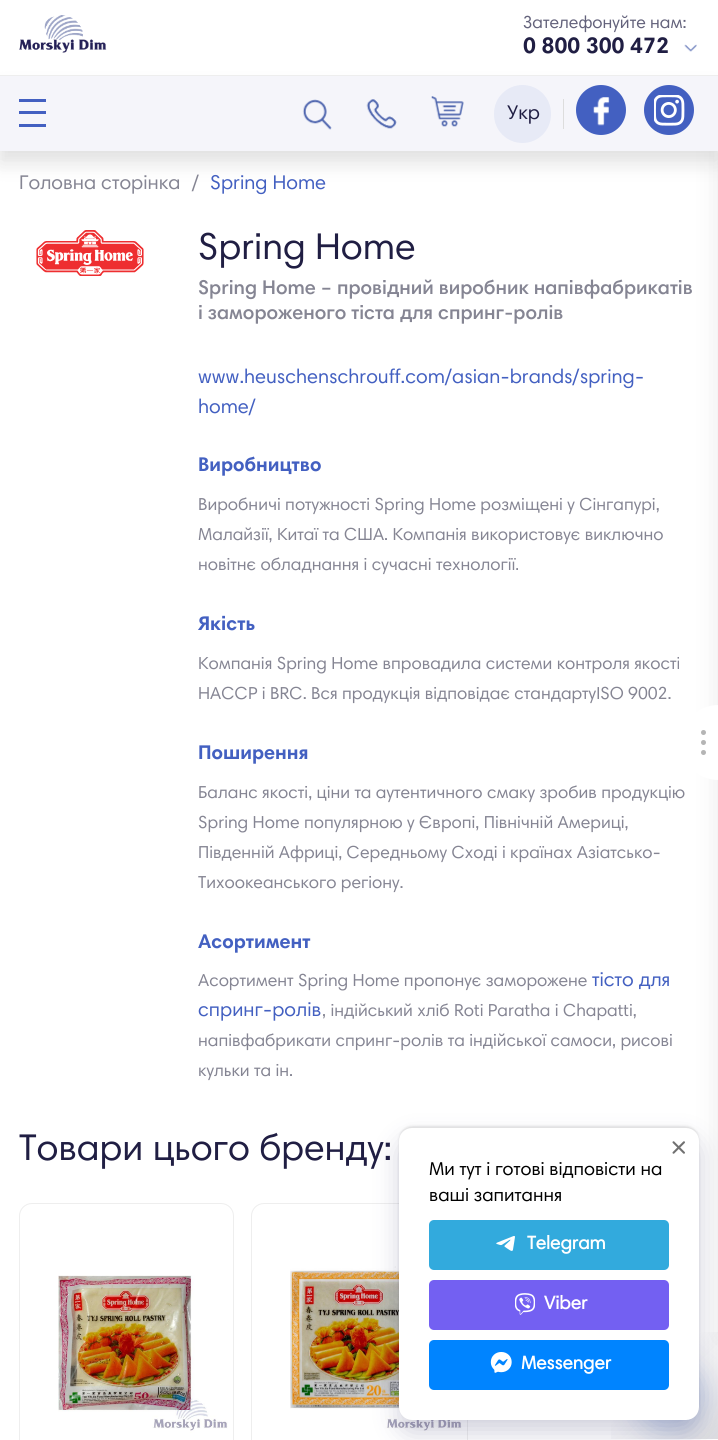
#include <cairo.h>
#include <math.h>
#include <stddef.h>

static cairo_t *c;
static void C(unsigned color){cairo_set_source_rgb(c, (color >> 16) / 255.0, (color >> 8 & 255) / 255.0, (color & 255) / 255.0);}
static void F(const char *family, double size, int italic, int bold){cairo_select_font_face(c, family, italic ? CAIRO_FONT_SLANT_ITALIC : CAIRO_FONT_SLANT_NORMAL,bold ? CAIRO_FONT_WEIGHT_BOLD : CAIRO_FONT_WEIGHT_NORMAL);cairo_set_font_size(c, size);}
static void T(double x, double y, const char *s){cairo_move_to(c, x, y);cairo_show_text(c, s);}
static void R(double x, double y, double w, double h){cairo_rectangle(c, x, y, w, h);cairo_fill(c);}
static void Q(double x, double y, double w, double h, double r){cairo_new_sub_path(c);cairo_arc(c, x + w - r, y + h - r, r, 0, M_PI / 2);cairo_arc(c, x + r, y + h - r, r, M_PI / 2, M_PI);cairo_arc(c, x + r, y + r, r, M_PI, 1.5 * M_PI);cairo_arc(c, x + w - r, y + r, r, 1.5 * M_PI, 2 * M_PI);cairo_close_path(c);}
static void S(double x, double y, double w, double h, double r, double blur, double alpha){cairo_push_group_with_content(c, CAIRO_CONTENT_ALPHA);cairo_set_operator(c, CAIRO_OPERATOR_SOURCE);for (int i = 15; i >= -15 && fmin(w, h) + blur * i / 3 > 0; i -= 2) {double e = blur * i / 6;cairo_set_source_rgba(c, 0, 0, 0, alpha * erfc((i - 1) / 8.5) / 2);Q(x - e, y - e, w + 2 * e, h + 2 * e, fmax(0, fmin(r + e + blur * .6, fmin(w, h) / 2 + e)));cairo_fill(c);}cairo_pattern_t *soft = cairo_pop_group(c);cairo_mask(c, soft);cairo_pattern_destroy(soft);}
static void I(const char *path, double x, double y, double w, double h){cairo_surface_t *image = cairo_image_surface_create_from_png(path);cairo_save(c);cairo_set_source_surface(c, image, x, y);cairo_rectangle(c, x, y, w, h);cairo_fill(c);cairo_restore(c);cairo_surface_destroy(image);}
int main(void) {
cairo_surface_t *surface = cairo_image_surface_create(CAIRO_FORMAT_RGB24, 718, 1440);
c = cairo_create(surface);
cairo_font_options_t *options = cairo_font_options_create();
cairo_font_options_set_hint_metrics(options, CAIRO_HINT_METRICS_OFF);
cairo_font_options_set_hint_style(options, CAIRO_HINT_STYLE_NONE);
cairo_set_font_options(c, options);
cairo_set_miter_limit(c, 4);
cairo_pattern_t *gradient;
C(0xffffff);
cairo_paint(c);
C(0xc4c4c4);
S(0,0,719,151,0,12.5,.38);
C(0xffffff);
R(0,0,718,75);
C(0xc4c4c4);
S(0,89,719,75,0,9.5,.38);
C(0xeeeeee);
R(0,75,718,1);
I("1.png",19,15,88,38);
F("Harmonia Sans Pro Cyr",17.5,0,0);
C(0x63627b);
T(523,28,"Зателефонуйте нам:");
F("Harmonia Sans Pro Cyr",22.5,0,1);
C(0x201e43);
T(523,53,"0 800 300 472");
I("2.png",684,44,13,8);
C(0xc4c4c4);
S(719,148,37,1190,0,12.5,.38);
C(0xf5f5fa);
R(0,76,718,75);
C(0x4360c1);
R(19,99,27,3);
R(19,111,27,3);
R(19,124,27,3);
I("3.png",302,99,30,31);
I("4.png",366,99,31,30);
I("5.png",431,96,33,31);
C(0xe7eaf6);
Q(494,85,57,58,28.5);
cairo_fill(c);
F("Harmonia Sans Pro Cyr",20,0,0);
C(0x201e43);
T(507,119,"Укр");
C(0xdddddd);
R(563,99,1,30);
C(0x4360c1);
cairo_new_path(c);
cairo_arc(c,601,110,25,0,2 * M_PI);
cairo_fill(c);
I("6.png",593,97,17,29);
cairo_arc(c,669,110,25,0,2 * M_PI);
cairo_fill(c);
I("7.png",654,95,31,31);
C(0x858593);
T(19,189,"Головна сторінка");
T(192,189,"/");
C(0x4360c1);
T(210,189,"Spring Home");
I("8.png",36,230,108,46);
F("Harmonia Sans Pro Cyr",37.5,0,0);
C(0x201e43);
T(198,259,"Spring Home");
F("Harmonia Sans Pro Cyr SemiBold",20,0,0);
C(0x858593);
T(198,294,"Spring Home – провідний виробник напівфабрикатів");
T(198,319,"і замороженого тіста для спринг-ролів");
F("Harmonia Sans Pro Cyr",20,0,0);
C(0x4360c1);
T(198,383,"www.heuschenschrouff.com/asian-brands/spring-");
T(198,413,"home/");
F("Harmonia Sans Pro Cyr",20,0,1);
T(198,471,"Виробництво");
F("Harmonia Sans Pro Cyr",17.5,0,0);
C(0x858593);
T(198,510,"Виробничі потужності Spring Home розміщені у Сінгапурі,");
T(198,540,"Малайзії, Китаї та США. Компанія використовує виключно");
T(198,570,"новітнє обладнання і сучасні технології.");
F("Harmonia Sans Pro Cyr",20,0,1);
C(0x4360c1);
T(198,630,"Якість");
F("Harmonia Sans Pro Cyr",17.5,0,0);
C(0x858593);
T(198,669,"Компанія Spring Home впровадила системи контроля якості");
T(198,699,"HACCP і BRC. Вся продукція відповідає стандартуISO 9002.");
F("Harmonia Sans Pro Cyr",20,0,1);
C(0x4360c1);
T(198,759,"Поширення");
F("Harmonia Sans Pro Cyr",17.5,0,0);
C(0x858593);
T(198,798,"Баланс якості, ціни та аутентичного смаку зробив продукцію");
T(198,828,"Spring Home популярною у Європі, Північній Америці,");
T(198,858,"Південній Африці, Середньому Сході і країнах Азіатсько-");
T(198,888,"Тихоокеанського регіону.");
F("Harmonia Sans Pro Cyr",20,0,1);
C(0x4360c1);
T(198,948,"Асортимент");
F("Harmonia Sans Pro Cyr",17.5,0,0);
C(0x858593);
T(198,986,"Асортимент Spring Home пропонує заморожене");
F("Harmonia Sans Pro Cyr",20,0,0);
C(0x4360c1);
T(592,986,"тісто для");
T(198,1016,"спринг-ролів");
F("Harmonia Sans Pro Cyr",17.5,0,0);
C(0x858593);
T(322,1016,", індійський хліб Roti Paratha і Chapatti,");
T(198,1046,"напівфабрикати спринг-ролів та індійської самоси, рисові");
T(198,1076,"кульки та ін.");
F("Harmonia Sans Pro Cyr",37.5,0,0);
C(0x201e43);
T(19,1160,"Товари цього бренду:");
Q(19.5,1203.5,214,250,12.5);
C(0xeeeeee);
cairo_set_line_width(c,1);
cairo_stroke(c);
I("9.png",58,1275,170,158);
Q(251.5,1203.5,216,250,12.5);
cairo_stroke(c);
I("10.png",290,1266,172,167);
C(0xffffff);
cairo_new_path(c);
cairo_move_to(c,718.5,705);
cairo_line_to(c,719,705);
cairo_line_to(c,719,780);
cairo_line_to(c,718.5,780);
cairo_curve_to(c,698,780,681,763,681,742.5);
cairo_curve_to(c,681,722,698,705,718.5,705);
cairo_close_path(c);
cairo_fill(c);
C(0xb5b5b5);
cairo_arc(c,703.5,732.5,2.5,0,2 * M_PI);
cairo_fill(c);
cairo_arc(c,703.5,742.5,2.5,0,2 * M_PI);
cairo_fill(c);
cairo_arc(c,703.5,752.5,2.5,0,2 * M_PI);
cairo_fill(c);
gradient = cairo_pattern_create_linear(593,1314,718,1439);
cairo_pattern_add_color_stop_rgba(gradient,.5,0.055,0.055,0.161,0);
cairo_pattern_add_color_stop_rgba(gradient,1,0.055,0.055,0.161,.15);
cairo_set_source(c,gradient);
cairo_pattern_destroy(gradient);
R(611,1332,107,107);
C(0x1f1f57);
S(399,1140,300,293,13,12.5,.2);
C(0x000000);
S(399,1126,300,293,13,1,.1);
C(0x2053b8);
S(635,1363,68,67,33.5,12.5,.2);
C(0xffffff);
Q(399,1128,300,292,13);
cairo_fill(c);
I("11.png",672,1141,13,13);
F("Harmonia Sans Pro Cyr",18.75,0,0);
C(0x000000);
T(429,1175,"Ми тут і готові відповісти на");
T(429,1201,"ваші запитання");
C(0x32aadd);
Q(429,1220,240,50,5);
cairo_fill(c);
I("12.png",496,1236,19,15);
F("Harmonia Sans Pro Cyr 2",18.75,0,1);
C(0xffffff);
T(527,1249,"Telegram");
C(0x7360f2);
Q(429,1280,240,50,5);
cairo_fill(c);
I("13.png",515,1293,20,22);
C(0xffffff);
T(544,1309,"Viber");
C(0x0084ff);
Q(429,1340,240,50,5);
cairo_fill(c);
I("14.png",490,1352,22,21);
C(0xffffff);
T(521,1369,"Messenger");
cairo_surface_write_to_png(surface, "o.png");
cairo_font_options_destroy(options);
cairo_destroy(c);
cairo_surface_destroy(surface);
return 0;
}
